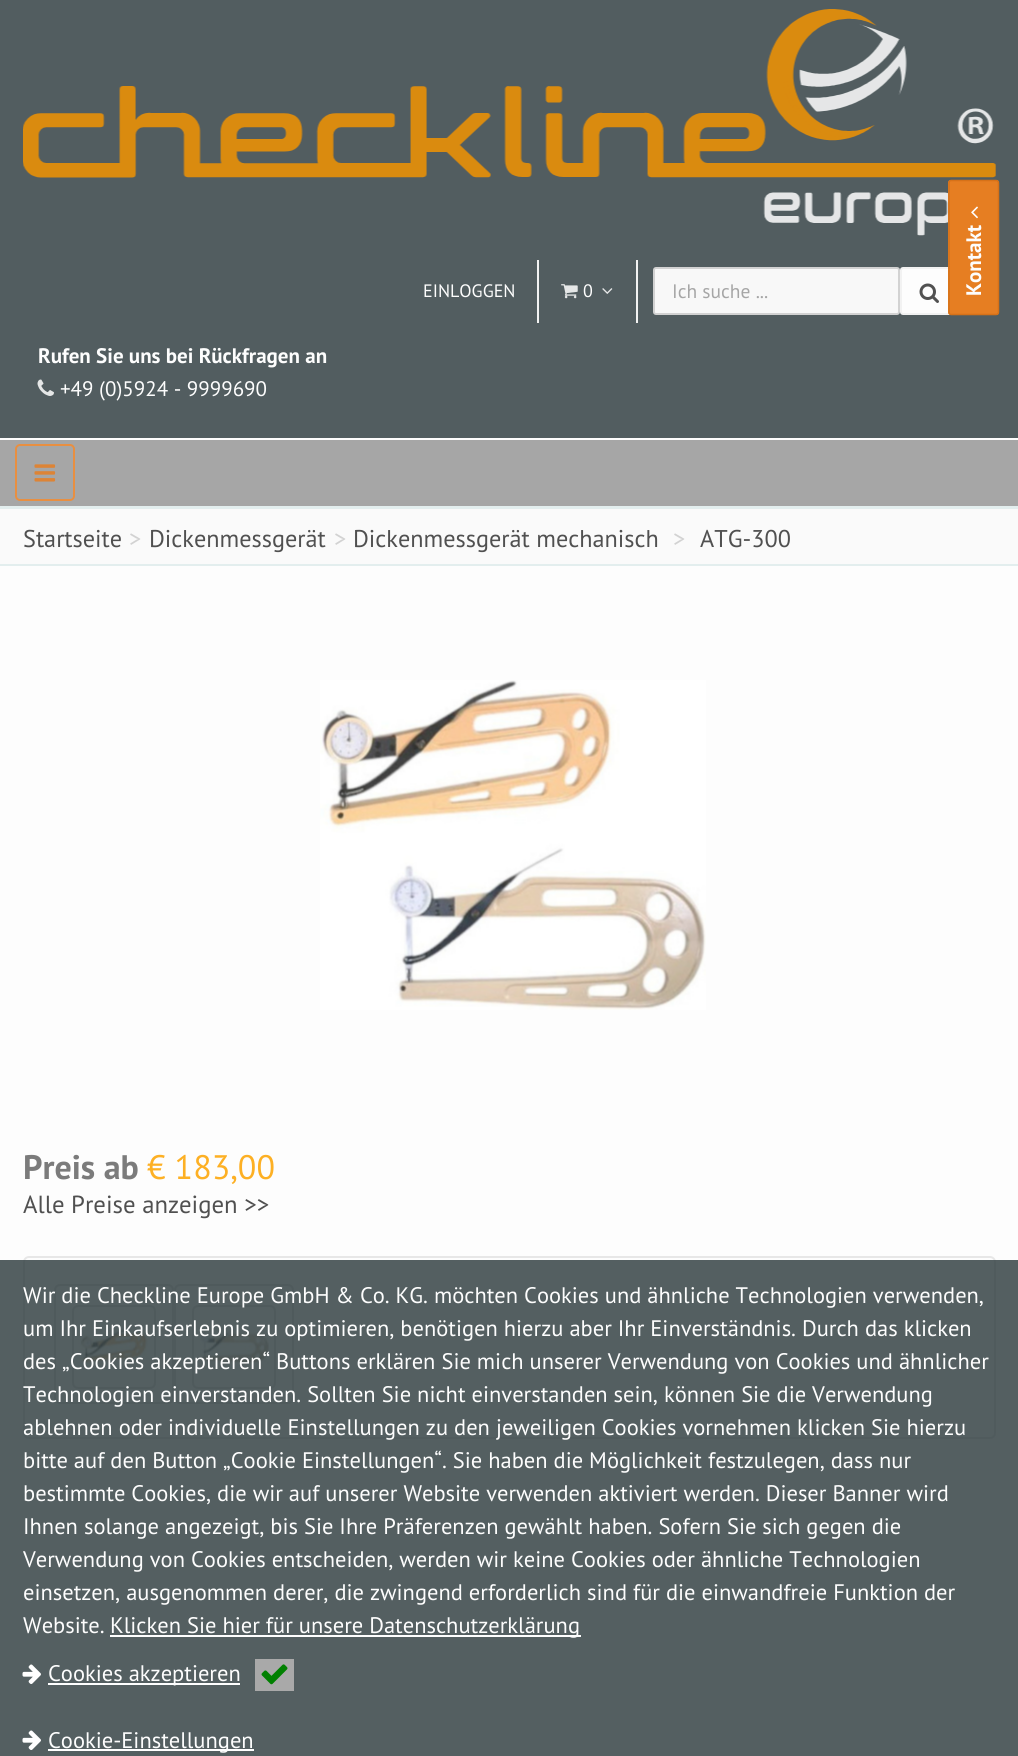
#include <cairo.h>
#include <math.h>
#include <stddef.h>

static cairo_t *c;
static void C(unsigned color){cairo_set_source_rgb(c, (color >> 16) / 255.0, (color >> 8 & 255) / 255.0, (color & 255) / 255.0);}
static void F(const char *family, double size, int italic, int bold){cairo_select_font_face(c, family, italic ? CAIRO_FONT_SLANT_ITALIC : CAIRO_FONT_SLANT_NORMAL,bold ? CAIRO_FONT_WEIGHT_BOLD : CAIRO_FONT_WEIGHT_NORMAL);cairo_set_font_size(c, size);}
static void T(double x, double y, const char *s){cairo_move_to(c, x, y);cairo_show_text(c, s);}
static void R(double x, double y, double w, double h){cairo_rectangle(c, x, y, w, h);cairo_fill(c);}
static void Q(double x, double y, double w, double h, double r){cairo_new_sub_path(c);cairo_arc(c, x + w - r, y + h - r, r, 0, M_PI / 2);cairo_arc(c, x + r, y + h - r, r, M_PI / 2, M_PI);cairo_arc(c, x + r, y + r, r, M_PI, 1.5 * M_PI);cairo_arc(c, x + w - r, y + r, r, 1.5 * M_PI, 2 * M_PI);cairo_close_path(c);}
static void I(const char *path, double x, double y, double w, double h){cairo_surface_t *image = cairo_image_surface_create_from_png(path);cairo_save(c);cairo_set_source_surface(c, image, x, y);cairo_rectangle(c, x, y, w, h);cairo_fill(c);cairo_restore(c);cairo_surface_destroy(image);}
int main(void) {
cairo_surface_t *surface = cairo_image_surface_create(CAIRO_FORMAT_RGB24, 1018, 1756);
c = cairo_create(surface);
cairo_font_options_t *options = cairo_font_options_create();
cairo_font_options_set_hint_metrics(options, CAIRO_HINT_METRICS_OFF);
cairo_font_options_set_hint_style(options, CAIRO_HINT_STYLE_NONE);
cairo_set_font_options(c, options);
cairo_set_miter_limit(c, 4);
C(0x525d60);
cairo_paint(c);
I("2.png",23,9,973,227);
C(0xfdfdfd);
Q(901,268,63,46,2);
cairo_fill_preserve(c);
C(0xf2f2f2);
cairo_stroke(c);
C(0xe67e22);
cairo_new_path(c);
cairo_move_to(c,948,312);
cairo_line_to(c,948,183);
cairo_curve_to(c,948,181,949,180,951,180);
cairo_line_to(c,996,180);
cairo_curve_to(c,998,180,999,181,999,183);
cairo_line_to(c,999,312);
cairo_curve_to(c,999,314,998,315,996,315);
cairo_line_to(c,951,315);
cairo_curve_to(c,949,315,948,314,948,312);
cairo_close_path(c);
cairo_fill(c);
cairo_new_path(c);
cairo_move_to(c,949,312);
cairo_line_to(c,949,183);
cairo_curve_to(c,949,181.5,950,180.5,951,180.5);
cairo_line_to(c,996,180.5);
cairo_curve_to(c,997.5,180.5,998.5,181.5,998.5,183);
cairo_line_to(c,998.5,312);
cairo_curve_to(c,998.5,313.5,997.5,314.5,996,314.5);
cairo_line_to(c,951,314.5);
cairo_curve_to(c,950,314.5,949,313.5,949,312);
cairo_close_path(c);
C(0xd67118);
cairo_set_line_width(c,1.5);
cairo_stroke(c);
I("1.png",971,206,7,13);
F("PT Sans",21,0,1);
C(0xfdfdfd);
cairo_save(c);
cairo_translate(c,981,296);
cairo_rotate(c,-90 * M_PI / 180);
T(0,0,"Kontakt");
cairo_restore(c);
C(0xe3eeee);
R(0,506,1018,3);
C(0xf2f2f2);
R(537,260,2,63);
F("PT Sans",18,0,0);
C(0xfdfdfd);
T(423,297,"EINLOGGEN");
C(0xf2f2f2);
R(636,260,2,63);
I("3.png",561,284,17,15);
C(0xfdfdfd);
T(583,297,"0");
I("4.png",602,288,11,6);
C(0xf8f8f8);
Q(654,268,245,46,2);
cairo_fill_preserve(c);
C(0xd2d2d2);
cairo_set_line_width(c,2);
cairo_stroke(c);
F("PT Sans",19.5,0,0);
C(0xa6a6a6);
T(672,298,"Ich suche ...");
I("5.png",919,283,20,20);
F("PT Sans",21,0,1);
C(0xfdfdfd);
T(38,363,"Rufen Sie uns bei Rückfragen an");
I("6.png",37,379,17,17);
F("PT Sans",21,0,0);
T(60,396,"+49 (0)5924 - 9999690");
C(0xa6a6a6);
R(0,440,1018,66);
C(0xfdfdfd);
R(0,438,1018,2);
Q(16,445,58,55,4);
C(0xe88f41);
cairo_stroke(c);
I("7.png",34,464,22,18);
C(0xfafafa);
R(0,509,1018,55);
C(0xe3eeee);
R(0,564,1018,2);
F("PT Sans",24.25,0,0);
C(0x505050);
T(23,547,"Startseite");
C(0xd2d2d2);
T(129,547,">");
C(0x505050);
T(149,547,"Dickenmessgerät");
C(0xd2d2d2);
T(334,547,">");
C(0x505050);
T(353,547,"Dickenmessgerät mechanisch");
C(0xd2d2d2);
T(673,547,">");
C(0x505050);
T(700,547,"ATG-300");
C(0xfdfdfd);
R(0,566,1018,1190);
I("8.png",320,680,386,330);
F("PT Sans",34,0,1);
C(0x7b7b7b);
T(23,1179,"Preis ab");
F("PT Sans",34,0,0);
C(0xfdb024);
T(147,1179,"€ 183,00");
F("PT Sans",24.75,0,0);
C(0x505050);
T(23,1213,"Alle Preise anzeigen >>");
Q(24,1257,971,181,5);
C(0xe7e7e7);
cairo_stroke(c);
Q(55,1285,118,118,5);
C(0xe0e0e0);
cairo_stroke(c);
Q(73,1306,82,82,5);
cairo_stroke(c);
I("9.png",78,1328,70,39);
Q(175,1285,118,118,5);
cairo_stroke(c);
Q(193,1306,82,82,5);
cairo_stroke(c);
I("10.png",200,1328,69,40);
cairo_set_source_rgba(c,0.212,0.263,0.275,0.85);
R(0,1260,1018,496);
F("PT Sans",22.5,0,0);
C(0xfdfdfd);
T(23,1303,"Wir die Checkline Europe GmbH & Co. KG. möchten Cookies und ähnliche Technologien verwenden,");
T(23,1336,"um Ihr Einkaufserlebnis zu optimieren, benötigen hierzu aber Ihr Einverständnis. Durch das klicken");
T(23,1369,"des „Cookies akzeptieren“ Buttons erklären Sie mich unserer Verwendung von Cookies und ähnlicher");
T(23,1402,"Technologien einverstanden. Sollten Sie nicht einverstanden sein, können Sie die Verwendung");
T(23,1435,"ablehnen oder individuelle Einstellungen zu den jeweiligen Cookies vornehmen klicken Sie hierzu");
T(23,1468,"bitte auf den Button „Cookie Einstellungen“. Sie haben die Möglichkeit festzulegen, dass nur");
T(23,1501,"bestimmte Cookies, die wir auf unserer Website verwenden aktiviert werden. Dieser Banner wird");
T(23,1534,"Ihnen solange angezeigt, bis Sie Ihre Präferenzen gewählt haben. Sofern Sie sich gegen die");
T(23,1567,"Verwendung von Cookies entscheiden, werden wir keine Cookies oder ähnliche Technologien");
T(23,1600,"einsetzen, ausgenommen derer, die zwingend erforderlich sind für die einwandfreie Funktion der");
T(23,1633,"Website.");
C(0xffffff);
R(110,1635,471,2);
C(0xfdfdfd);
T(110,1633,"Klicken Sie hier für unsere Datenschutzerklärung");
I("11.png",22,1664,19,20);
C(0xffffff);
R(48,1683,192,2);
C(0xfdfdfd);
T(48,1681,"Cookies akzeptieren");
C(0xa9a9a9);
R(255,1659,39,32);
I("12.png",261,1664,27,21);
I("13.png",22,1730,19,20);
C(0xffffff);
R(48,1749,206,2);
C(0xfdfdfd);
T(48,1748,"Cookie-Einstellungen");
cairo_surface_write_to_png(surface, "o.png");
cairo_font_options_destroy(options);
cairo_destroy(c);
cairo_surface_destroy(surface);
return 0;
}
